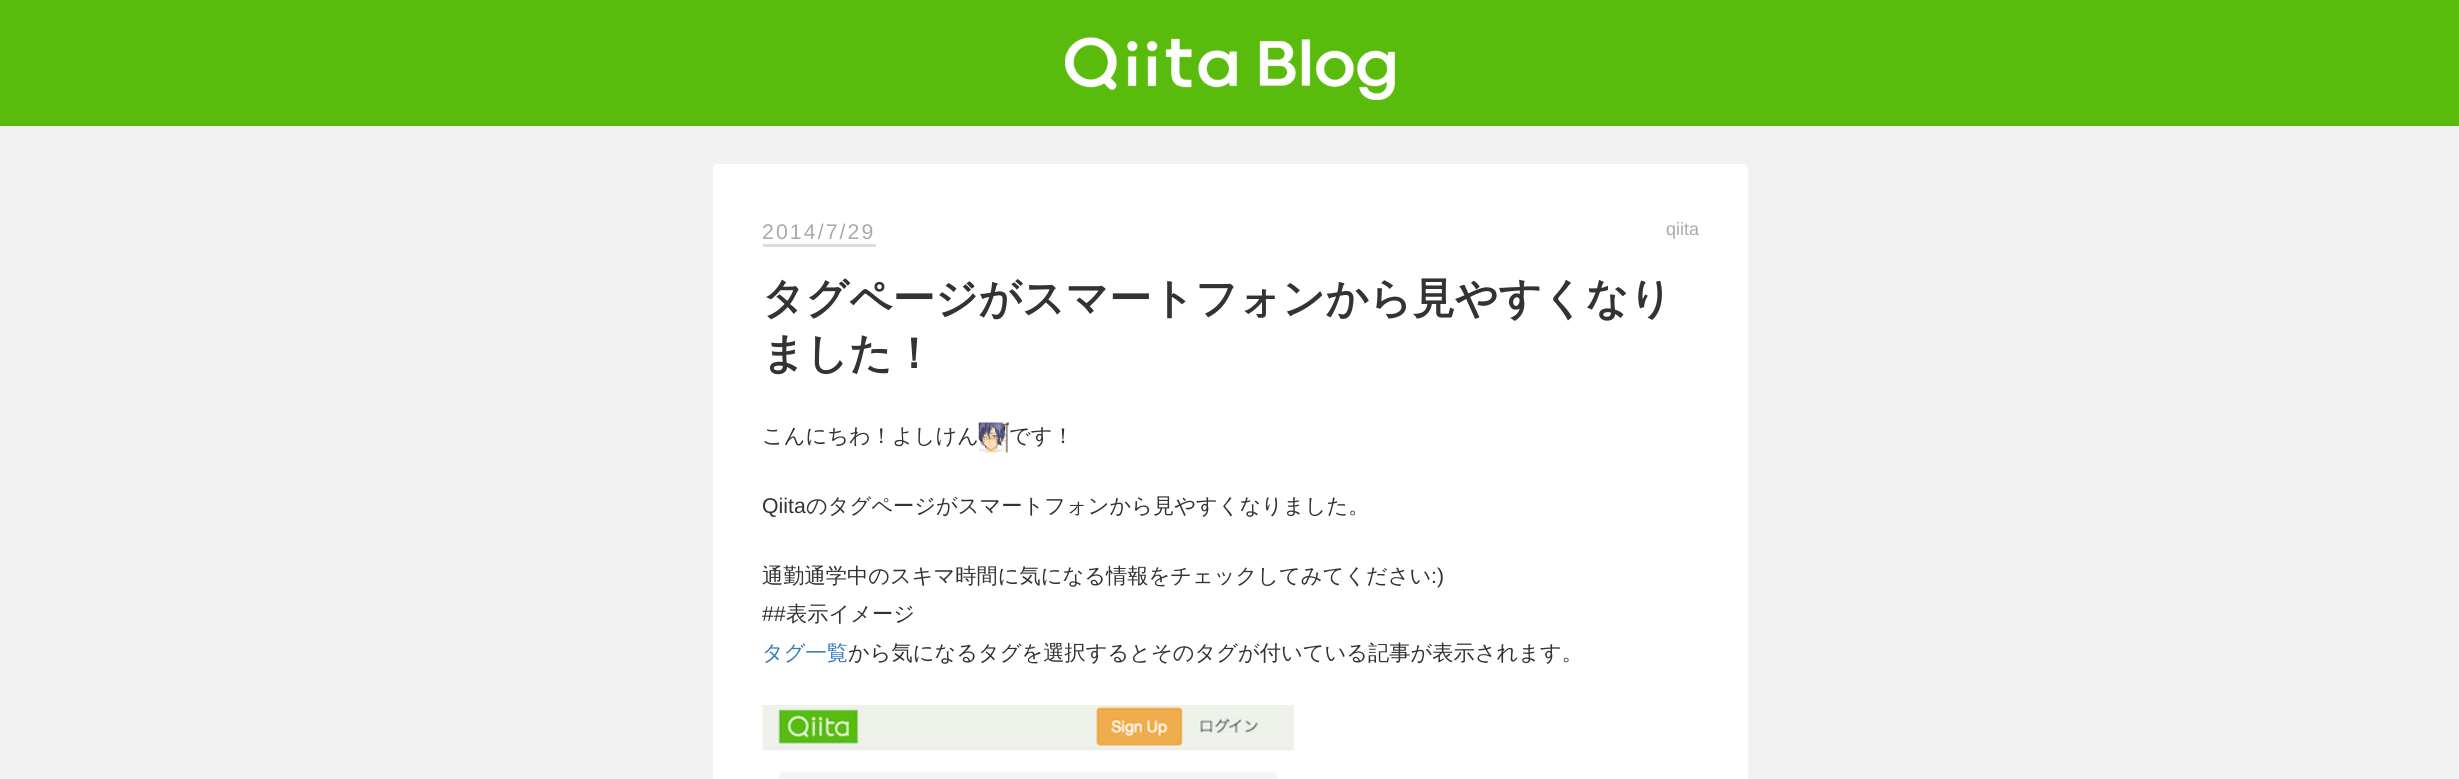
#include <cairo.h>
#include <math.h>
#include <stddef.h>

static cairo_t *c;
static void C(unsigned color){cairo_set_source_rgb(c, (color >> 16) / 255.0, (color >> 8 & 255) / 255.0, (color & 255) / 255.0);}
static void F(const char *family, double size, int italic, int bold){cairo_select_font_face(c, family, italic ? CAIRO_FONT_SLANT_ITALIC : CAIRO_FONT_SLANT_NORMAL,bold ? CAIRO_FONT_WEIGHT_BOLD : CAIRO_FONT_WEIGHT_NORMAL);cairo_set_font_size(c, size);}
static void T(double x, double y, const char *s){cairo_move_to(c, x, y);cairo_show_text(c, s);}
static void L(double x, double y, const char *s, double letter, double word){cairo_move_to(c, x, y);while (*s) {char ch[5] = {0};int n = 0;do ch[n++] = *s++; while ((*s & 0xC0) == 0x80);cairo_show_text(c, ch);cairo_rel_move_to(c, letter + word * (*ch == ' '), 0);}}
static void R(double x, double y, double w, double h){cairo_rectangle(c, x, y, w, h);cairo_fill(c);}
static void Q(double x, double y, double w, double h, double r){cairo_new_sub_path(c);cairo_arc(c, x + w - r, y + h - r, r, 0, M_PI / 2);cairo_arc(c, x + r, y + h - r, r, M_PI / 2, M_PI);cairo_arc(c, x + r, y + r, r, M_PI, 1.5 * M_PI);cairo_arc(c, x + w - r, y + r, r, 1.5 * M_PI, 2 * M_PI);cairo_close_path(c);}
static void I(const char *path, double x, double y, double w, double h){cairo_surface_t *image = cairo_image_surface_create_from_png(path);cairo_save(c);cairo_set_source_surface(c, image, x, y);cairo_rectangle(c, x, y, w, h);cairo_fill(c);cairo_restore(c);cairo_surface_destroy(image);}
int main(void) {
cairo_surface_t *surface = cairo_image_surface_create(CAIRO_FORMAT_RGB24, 2459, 779);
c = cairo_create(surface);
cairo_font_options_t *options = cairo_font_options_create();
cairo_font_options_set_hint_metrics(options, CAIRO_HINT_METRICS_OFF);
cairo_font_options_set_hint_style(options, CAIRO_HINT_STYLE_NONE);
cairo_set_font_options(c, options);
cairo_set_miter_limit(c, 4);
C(0xf1f1f1);
cairo_paint(c);
C(0x59bb0c);
R(0,0,2459,126);
I("1.png",1065,37,330,63);
C(0xffffff);
Q(713,164,1035,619,4);
cairo_fill(c);
F("Liberation Sans",21.25,0,0);
C(0xaaaaaa);
L(762,239,"2014/7/29",2.1,0);
C(0xdddddd);
R(763,244,113,3);
F("Liberation Sans",18,0,0);
C(0xaaaaaa);
T(1666,235,"qiita");
F("WenQuanYi Zen Hei",42.5,0,1);
C(0x333333);
T(762,313,"タグページがスマートフォンから見やすくなり");
T(762,368,"ました！");
F("WenQuanYi Zen Hei Medium",21.25,0,0);
T(762,443,"こんにちわ！よしけん");
I("2.png",978,422,31,31);
T(1009,443,"です！");
F("Liberation Sans",21.25,0,0);
T(762,513,"Qiita");
F("WenQuanYi Zen Hei Medium",21.25,0,0);
T(806,513,"のタグページがスマートフォンから見やすくなりました。");
T(762,583,"通勤通学中のスキマ時間に気になる情報をチェックしてみてください");
F("Liberation Sans",21.25,0,0);
T(1431,583,":)");
T(762,621,"##");
F("WenQuanYi Zen Hei Medium",21.25,0,0);
T(786,621,"表示イメージ");
C(0x337ab7);
T(762,660,"タグ一覧");
C(0x333333);
T(848,660,"から気になるタグを選択するとそのタグが付いている記事が表示されます。");
I("3.png",762,705,532,74);
cairo_surface_write_to_png(surface, "o.png");
cairo_font_options_destroy(options);
cairo_destroy(c);
cairo_surface_destroy(surface);
return 0;
}
